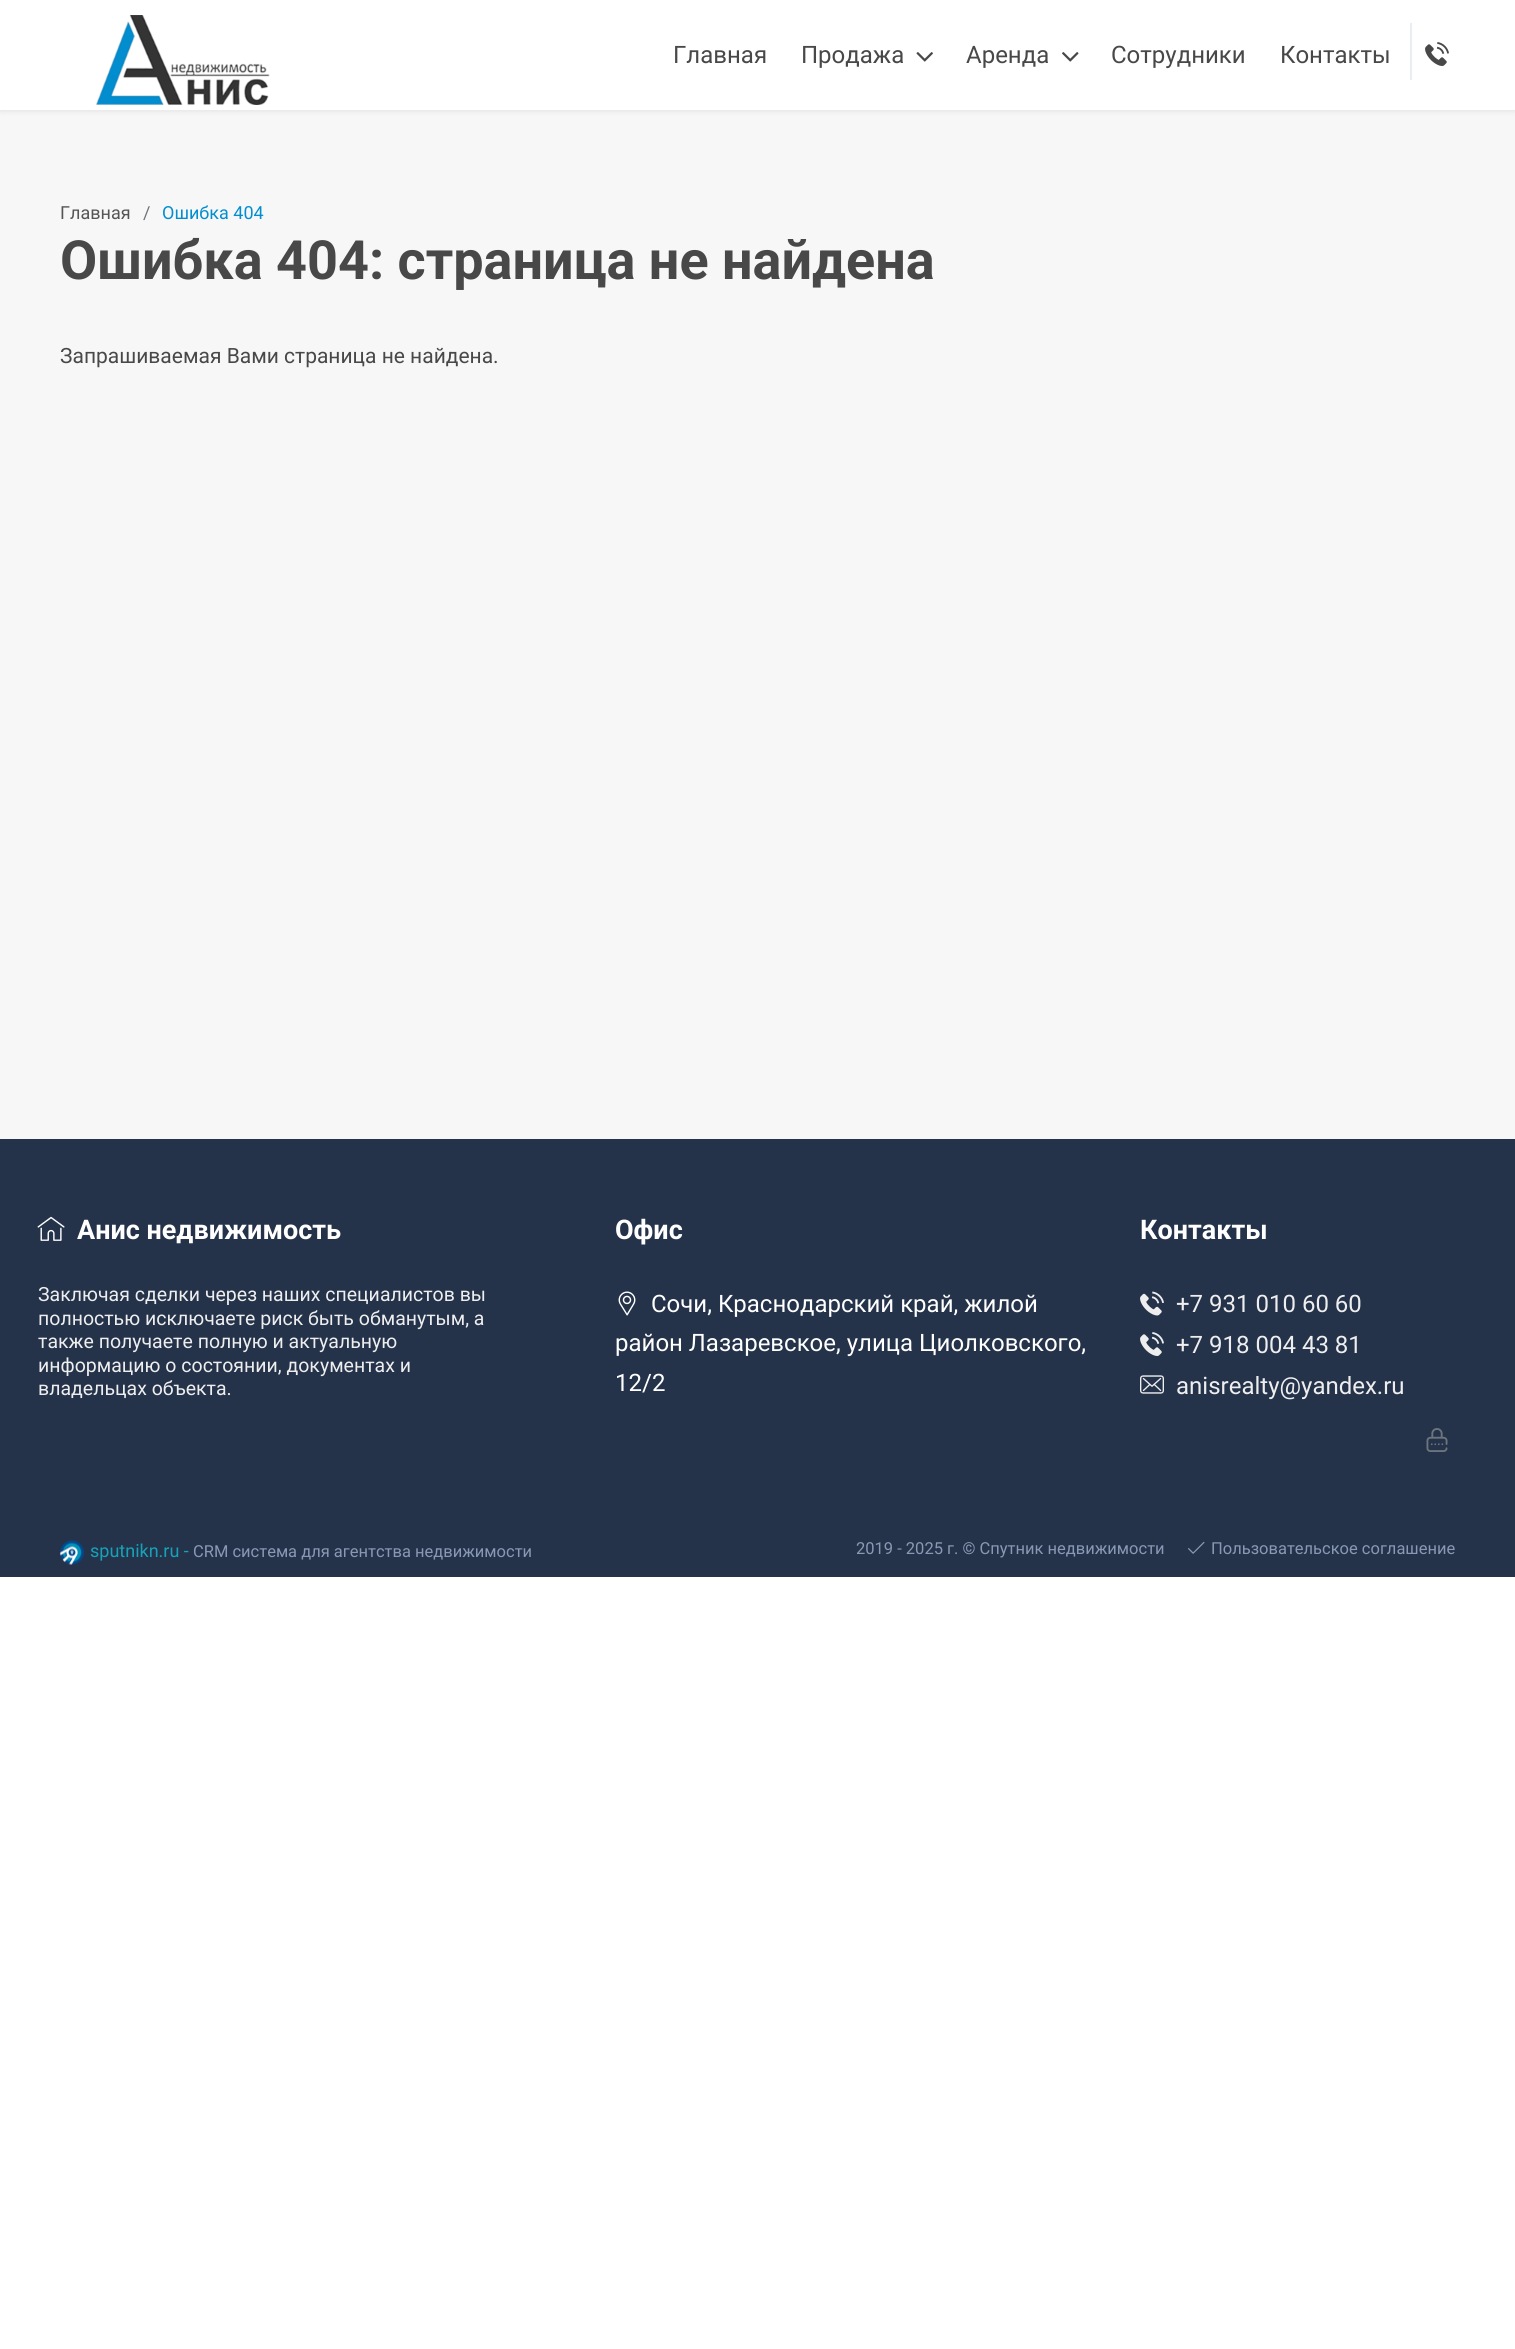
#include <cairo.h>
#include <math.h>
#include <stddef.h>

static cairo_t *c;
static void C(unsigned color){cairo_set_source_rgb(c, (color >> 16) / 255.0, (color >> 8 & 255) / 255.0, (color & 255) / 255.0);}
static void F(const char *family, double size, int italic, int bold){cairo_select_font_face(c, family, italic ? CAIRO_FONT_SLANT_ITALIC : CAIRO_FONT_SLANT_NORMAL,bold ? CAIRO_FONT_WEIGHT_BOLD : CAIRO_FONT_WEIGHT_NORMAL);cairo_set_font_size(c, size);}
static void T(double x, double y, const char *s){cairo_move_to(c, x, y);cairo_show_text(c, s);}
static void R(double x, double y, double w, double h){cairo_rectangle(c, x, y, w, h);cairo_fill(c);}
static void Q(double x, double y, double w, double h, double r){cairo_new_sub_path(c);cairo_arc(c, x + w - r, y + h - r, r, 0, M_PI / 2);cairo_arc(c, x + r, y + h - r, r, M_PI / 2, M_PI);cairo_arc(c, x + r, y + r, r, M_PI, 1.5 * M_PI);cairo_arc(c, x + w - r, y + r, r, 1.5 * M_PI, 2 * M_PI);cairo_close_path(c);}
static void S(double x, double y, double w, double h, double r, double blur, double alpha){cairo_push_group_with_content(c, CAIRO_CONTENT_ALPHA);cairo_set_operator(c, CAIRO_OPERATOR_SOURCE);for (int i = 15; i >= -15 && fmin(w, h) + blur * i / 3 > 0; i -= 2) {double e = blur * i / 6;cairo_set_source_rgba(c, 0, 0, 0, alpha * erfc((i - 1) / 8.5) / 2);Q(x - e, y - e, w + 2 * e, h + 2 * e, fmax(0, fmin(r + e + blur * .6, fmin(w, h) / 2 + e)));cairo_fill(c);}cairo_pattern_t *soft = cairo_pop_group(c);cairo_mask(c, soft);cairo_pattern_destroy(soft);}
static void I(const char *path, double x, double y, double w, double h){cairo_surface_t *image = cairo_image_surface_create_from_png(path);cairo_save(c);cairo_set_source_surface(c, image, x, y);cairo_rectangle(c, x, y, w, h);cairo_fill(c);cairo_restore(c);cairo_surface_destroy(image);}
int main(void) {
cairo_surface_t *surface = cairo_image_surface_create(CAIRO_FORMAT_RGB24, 1515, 2349);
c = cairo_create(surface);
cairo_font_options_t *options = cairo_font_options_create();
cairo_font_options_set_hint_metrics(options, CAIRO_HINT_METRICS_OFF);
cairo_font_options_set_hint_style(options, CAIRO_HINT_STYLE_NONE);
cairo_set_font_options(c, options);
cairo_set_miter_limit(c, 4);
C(0xffffff);
cairo_paint(c);
C(0xf7f7f7);
R(0,110,1515,1029);
C(0x000000);
S(0,2,1515,109,0,3,.09);
C(0xffffff);
R(0,0,1515,110);
I("1.png",95,15,175,90);
F("Roboto",24,0,0);
C(0x484848);
T(673,63,"Главная");
T(801,63,"Продажа");
I("2.png",916,52,17,10);
T(966,63,"Аренда");
I("3.png",1062,52,17,10);
T(1111,63,"Сотрудники");
T(1280,63,"Контакты");
C(0xe8eef2);
R(1410,23,2,57);
I("4.png",1425,42,24,24);
F("Roboto",18,0,0);
C(0x555555);
T(60,219,"Главная");
C(0x6c757d);
T(143,219,"/");
C(0x028ecf);
T(162,219,"Ошибка 404");
F("Roboto",54,0,1);
C(0x484848);
T(60,279,"Ошибка 404: страница не найдена");
F("Roboto",21,0,0);
T(60,363,"Запрашиваемая Вами страница не найдена.");
C(0x24324a);
R(0,1139,1515,438);
I("5.png",37,1216,28,25);
F("Roboto",27,0,1);
C(0xffffff);
T(77,1239,"Анис недвижимость");
F("Roboto",19.5,0,0);
C(0xeeeeee);
T(38,1301,"Заключая сделки через наших специалистов вы");
T(38,1325,"полностью исключаете риск быть обманутым, а");
T(38,1348,"также получаете полную и актуальную");
T(38,1372,"информацию о состоянии, документах и");
T(38,1395,"владельцах объекта.");
F("Roboto",27,0,1);
C(0xffffff);
T(615,1239,"Офис");
I("6.png",618,1291,18,25);
F("Roboto",24,0,0);
T(651,1312,"Сочи, Краснодарский край, жилой");
T(615,1351,"район Лазаревское, улица Циолковского,");
T(615,1391,"12/2");
F("Roboto",27,0,1);
T(1140,1239,"Контакты");
I("7.png",1140,1291,24,25);
F("Roboto",24,0,0);
C(0xeeeeee);
T(1176,1312,"+7 931 010 60 60");
I("8.png",1140,1332,24,24);
T(1176,1353,"+7 918 004 43 81");
I("9.png",1140,1375,24,19);
T(1176,1394,"anisrealty@yandex.ru");
I("10.png",1426,1428,22,24);
I("11.png",60,1540,24,25);
F("Roboto",18,0,0);
C(0x17a2b8);
T(90,1557,"sputnikn.ru -");
F("Roboto",16.5,0,0);
C(0x8a99b3);
T(193,1557,"CRM система для агентства недвижимости");
T(856,1554,"2019 - 2025 г. © Спутник недвижимости");
I("12.png",1188,1541,17,13);
T(1211,1554,"Пользовательское соглашение");
cairo_surface_write_to_png(surface, "o.png");
cairo_font_options_destroy(options);
cairo_destroy(c);
cairo_surface_destroy(surface);
return 0;
}
